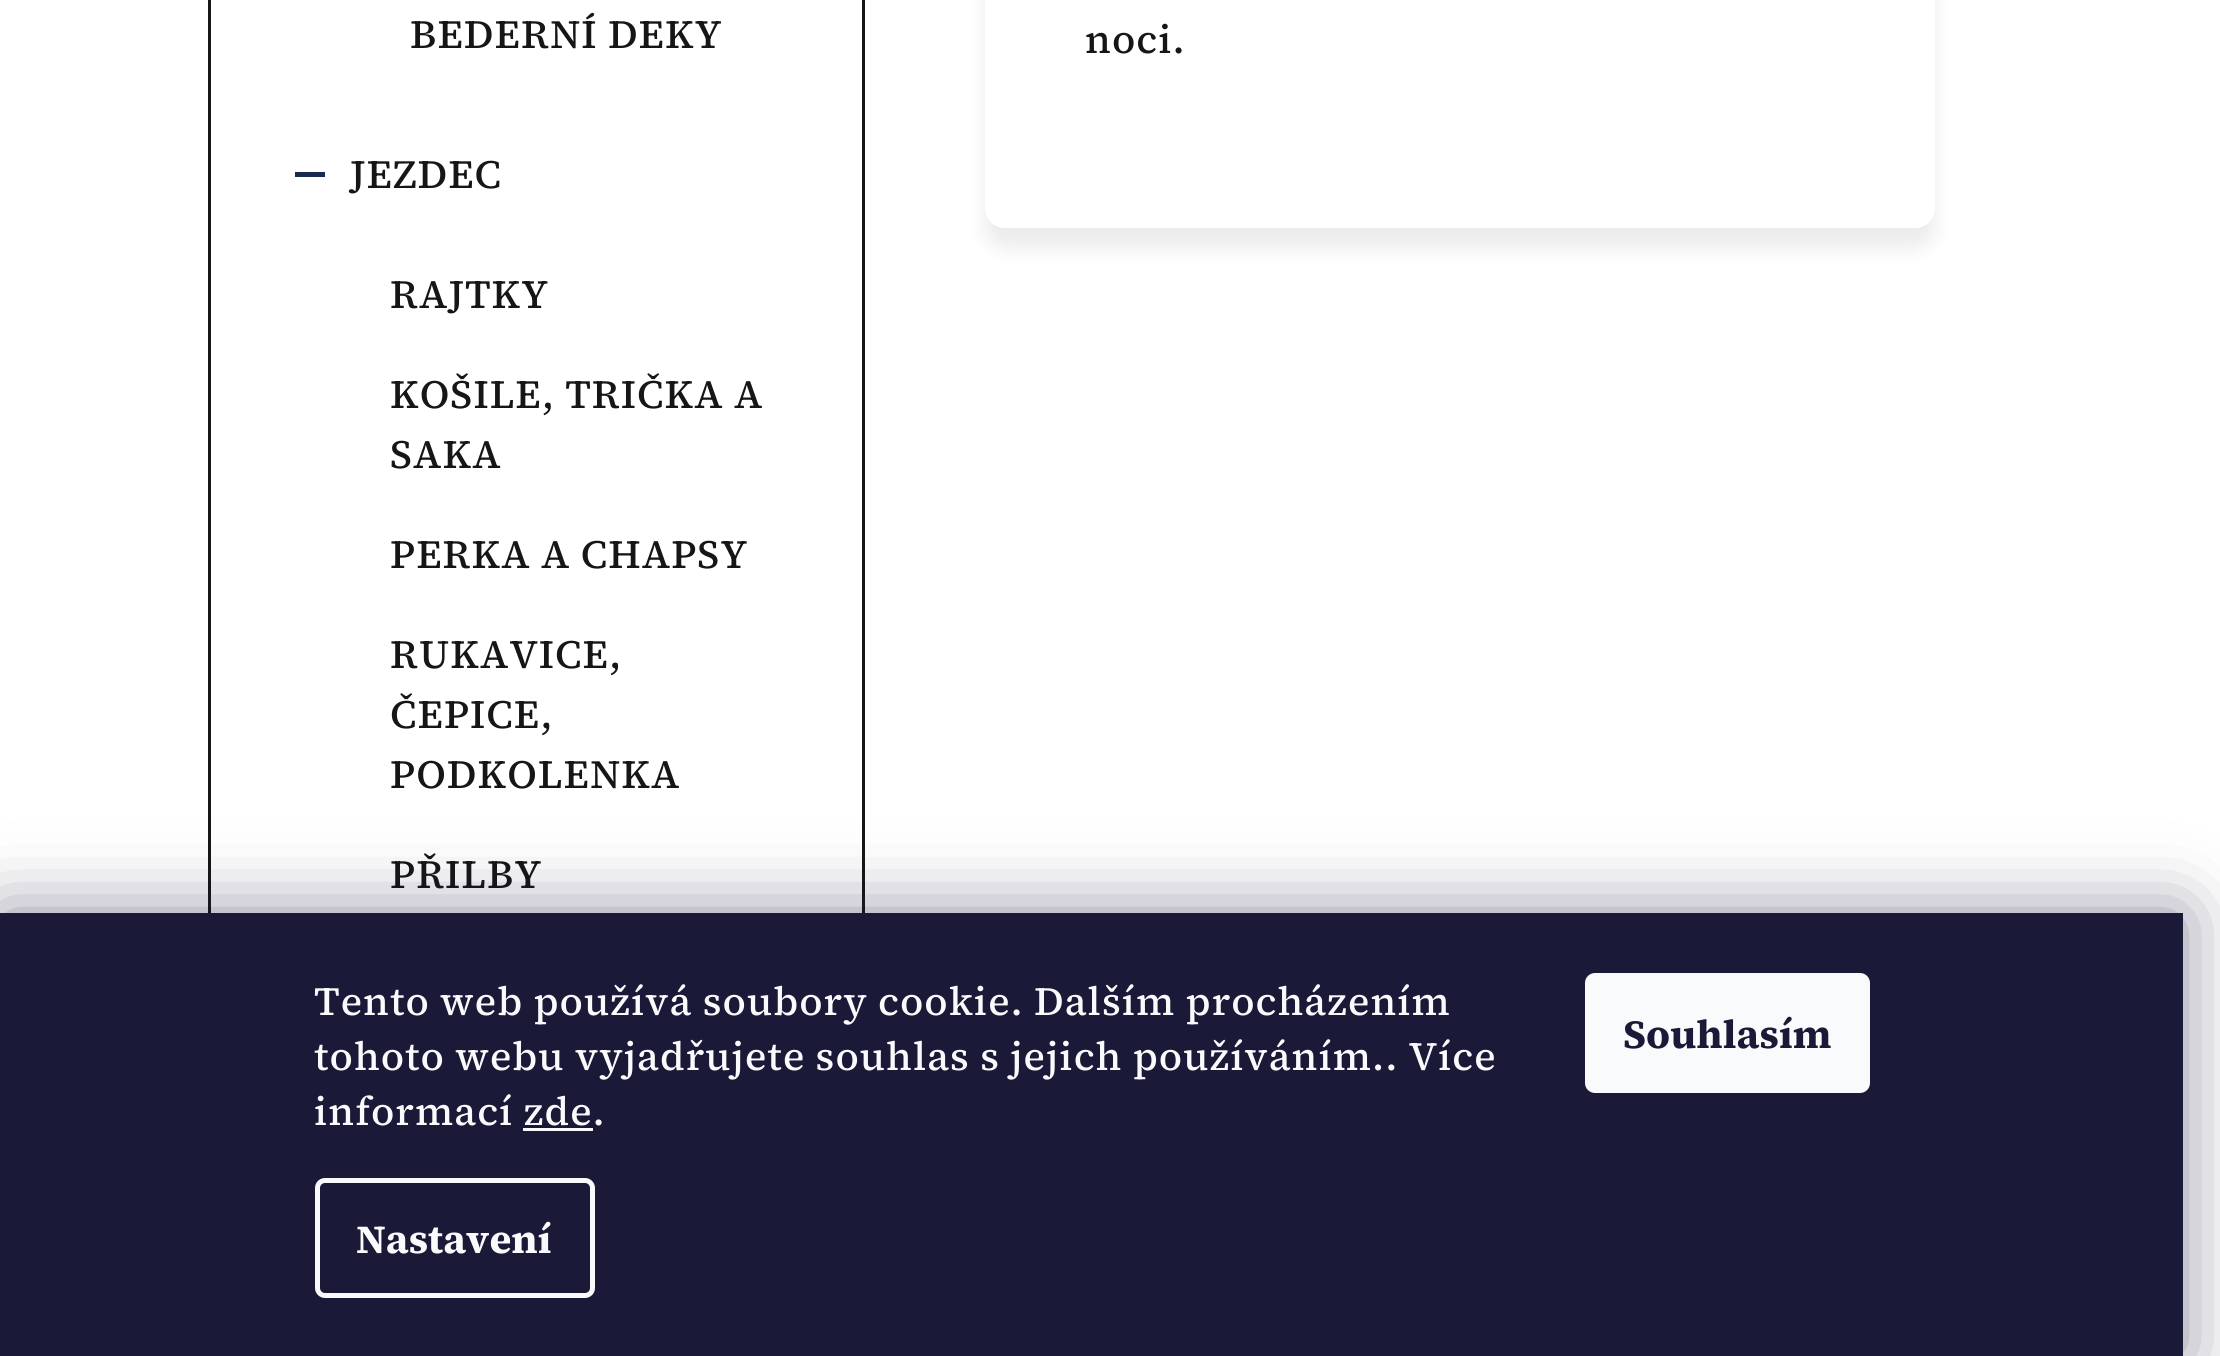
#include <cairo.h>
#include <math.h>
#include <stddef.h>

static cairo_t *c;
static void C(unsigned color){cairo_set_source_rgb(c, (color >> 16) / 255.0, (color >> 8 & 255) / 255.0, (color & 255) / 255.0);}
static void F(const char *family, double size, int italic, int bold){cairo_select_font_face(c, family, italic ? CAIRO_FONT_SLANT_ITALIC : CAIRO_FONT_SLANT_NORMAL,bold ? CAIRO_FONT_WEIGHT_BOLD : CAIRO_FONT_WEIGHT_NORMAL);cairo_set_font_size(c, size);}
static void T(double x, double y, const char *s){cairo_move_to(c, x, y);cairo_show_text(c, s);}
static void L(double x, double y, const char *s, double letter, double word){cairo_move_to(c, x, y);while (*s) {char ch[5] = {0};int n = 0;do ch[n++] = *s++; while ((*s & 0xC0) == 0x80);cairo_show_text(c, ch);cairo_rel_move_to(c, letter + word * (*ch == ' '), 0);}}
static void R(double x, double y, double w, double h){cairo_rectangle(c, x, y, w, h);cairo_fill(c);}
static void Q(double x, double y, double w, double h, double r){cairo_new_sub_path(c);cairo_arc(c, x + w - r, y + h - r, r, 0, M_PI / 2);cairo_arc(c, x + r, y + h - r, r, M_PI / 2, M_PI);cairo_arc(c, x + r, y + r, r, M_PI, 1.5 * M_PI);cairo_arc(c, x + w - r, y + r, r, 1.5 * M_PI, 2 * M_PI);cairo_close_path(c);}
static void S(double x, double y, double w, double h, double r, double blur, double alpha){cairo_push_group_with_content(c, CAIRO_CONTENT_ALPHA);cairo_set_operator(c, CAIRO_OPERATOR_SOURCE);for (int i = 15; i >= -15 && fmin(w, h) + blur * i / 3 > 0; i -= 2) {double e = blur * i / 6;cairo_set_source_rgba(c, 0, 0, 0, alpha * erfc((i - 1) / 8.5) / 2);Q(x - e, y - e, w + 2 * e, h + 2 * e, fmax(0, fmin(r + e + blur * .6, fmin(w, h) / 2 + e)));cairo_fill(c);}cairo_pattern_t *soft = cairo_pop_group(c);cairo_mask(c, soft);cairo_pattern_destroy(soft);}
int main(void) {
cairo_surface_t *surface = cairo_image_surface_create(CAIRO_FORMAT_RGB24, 2220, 1356);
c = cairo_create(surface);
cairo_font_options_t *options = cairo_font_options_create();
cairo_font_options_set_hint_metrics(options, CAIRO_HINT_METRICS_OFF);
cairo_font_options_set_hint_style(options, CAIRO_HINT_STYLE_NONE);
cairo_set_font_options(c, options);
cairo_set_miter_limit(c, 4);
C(0xffffff);
cairo_paint(c);
cairo_rectangle(c,209.5,-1.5,654,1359);
C(0x161616);
cairo_set_line_width(c,3);
cairo_stroke(c);
F("Source Serif 4 Medium",40,0,0);
L(410,48,"BEDERNÍ DEKY",1,0);
C(0x182a4e);
R(295,172,30,5);
C(0x161616);
L(350,188,"JEZDEC",1,0);
L(390,308,"RAJTKY",1,0);
L(390,408,"KOŠILE, TRIČKA A",1,0);
L(390,468,"SAKA",1,0);
L(390,568,"PERKA A CHAPSY",1,0);
L(390,668,"RUKAVICE,",1,0);
L(390,728,"ČEPICE,",1,0);
L(390,788,"PODKOLENKA",1,0);
L(390,888,"PŘILBY",1,0);
C(0x000000);
S(985,-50,950,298,20,10,.08);
C(0xffffff);
Q(985,-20,950,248,20);
cairo_fill(c);
C(0x161616);
L(1085,53,"noci.",1,0);
C(0x1b1939);
S(0,913,2183,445,0,37.5,.5);
C(0x1a1937);
R(0,913,2183,443);
C(0xf8fafb);
L(314,1015,"Tento web používá soubory cookie. Dalším procházením",1,0);
L(314,1070,"tohoto webu vyjadřujete souhlas s jejich používáním.. Více",1,0);
L(314,1125,"informací zde.",1,0);
R(523,1128,70,3);
Q(317.5,1180.5,275,115,7.5);
cairo_set_line_width(c,5);
cairo_stroke(c);
F("Source Serif 4",40,0,1);
T(356,1253,"Nastavení");
Q(1585,973,285,120,10);
cairo_fill(c);
C(0x1a1937);
T(1623,1048,"Souhlasím");
cairo_surface_write_to_png(surface, "o.png");
cairo_font_options_destroy(options);
cairo_destroy(c);
cairo_surface_destroy(surface);
return 0;
}
